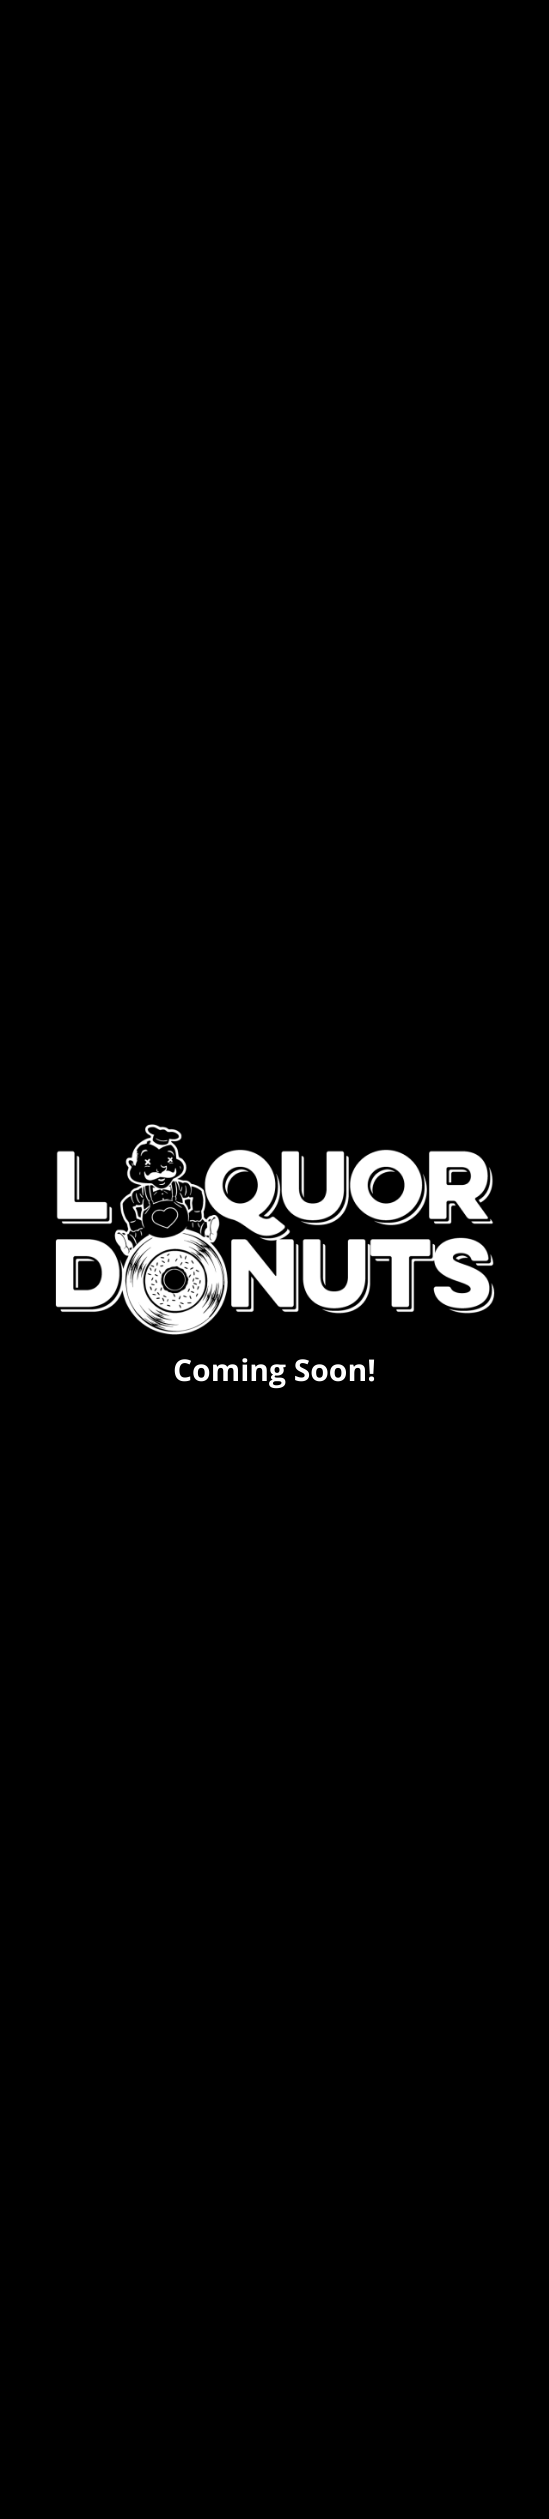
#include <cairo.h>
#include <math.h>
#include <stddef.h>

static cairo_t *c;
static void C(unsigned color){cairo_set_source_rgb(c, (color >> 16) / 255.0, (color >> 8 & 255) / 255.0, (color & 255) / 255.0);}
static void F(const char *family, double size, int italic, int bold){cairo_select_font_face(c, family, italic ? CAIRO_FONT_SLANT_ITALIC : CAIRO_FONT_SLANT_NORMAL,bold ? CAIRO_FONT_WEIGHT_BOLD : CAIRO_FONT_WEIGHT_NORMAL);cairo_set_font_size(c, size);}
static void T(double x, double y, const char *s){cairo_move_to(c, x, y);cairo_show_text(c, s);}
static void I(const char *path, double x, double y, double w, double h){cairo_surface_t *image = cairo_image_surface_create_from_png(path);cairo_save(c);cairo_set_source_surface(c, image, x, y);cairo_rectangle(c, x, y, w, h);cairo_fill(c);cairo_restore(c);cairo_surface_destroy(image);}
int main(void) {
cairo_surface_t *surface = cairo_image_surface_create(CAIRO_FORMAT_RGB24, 549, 2519);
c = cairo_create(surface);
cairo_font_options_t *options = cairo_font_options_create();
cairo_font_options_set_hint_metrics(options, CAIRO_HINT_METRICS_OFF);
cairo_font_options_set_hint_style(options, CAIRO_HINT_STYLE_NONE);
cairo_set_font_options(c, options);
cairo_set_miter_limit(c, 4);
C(0x000000);
cairo_paint(c);
I("1.png",55,1124,440,211);
F("Open Sans",30,0,1);
C(0xffffff);
T(173,1381,"Coming Soon!");
cairo_surface_write_to_png(surface, "o.png");
cairo_font_options_destroy(options);
cairo_destroy(c);
cairo_surface_destroy(surface);
return 0;
}
